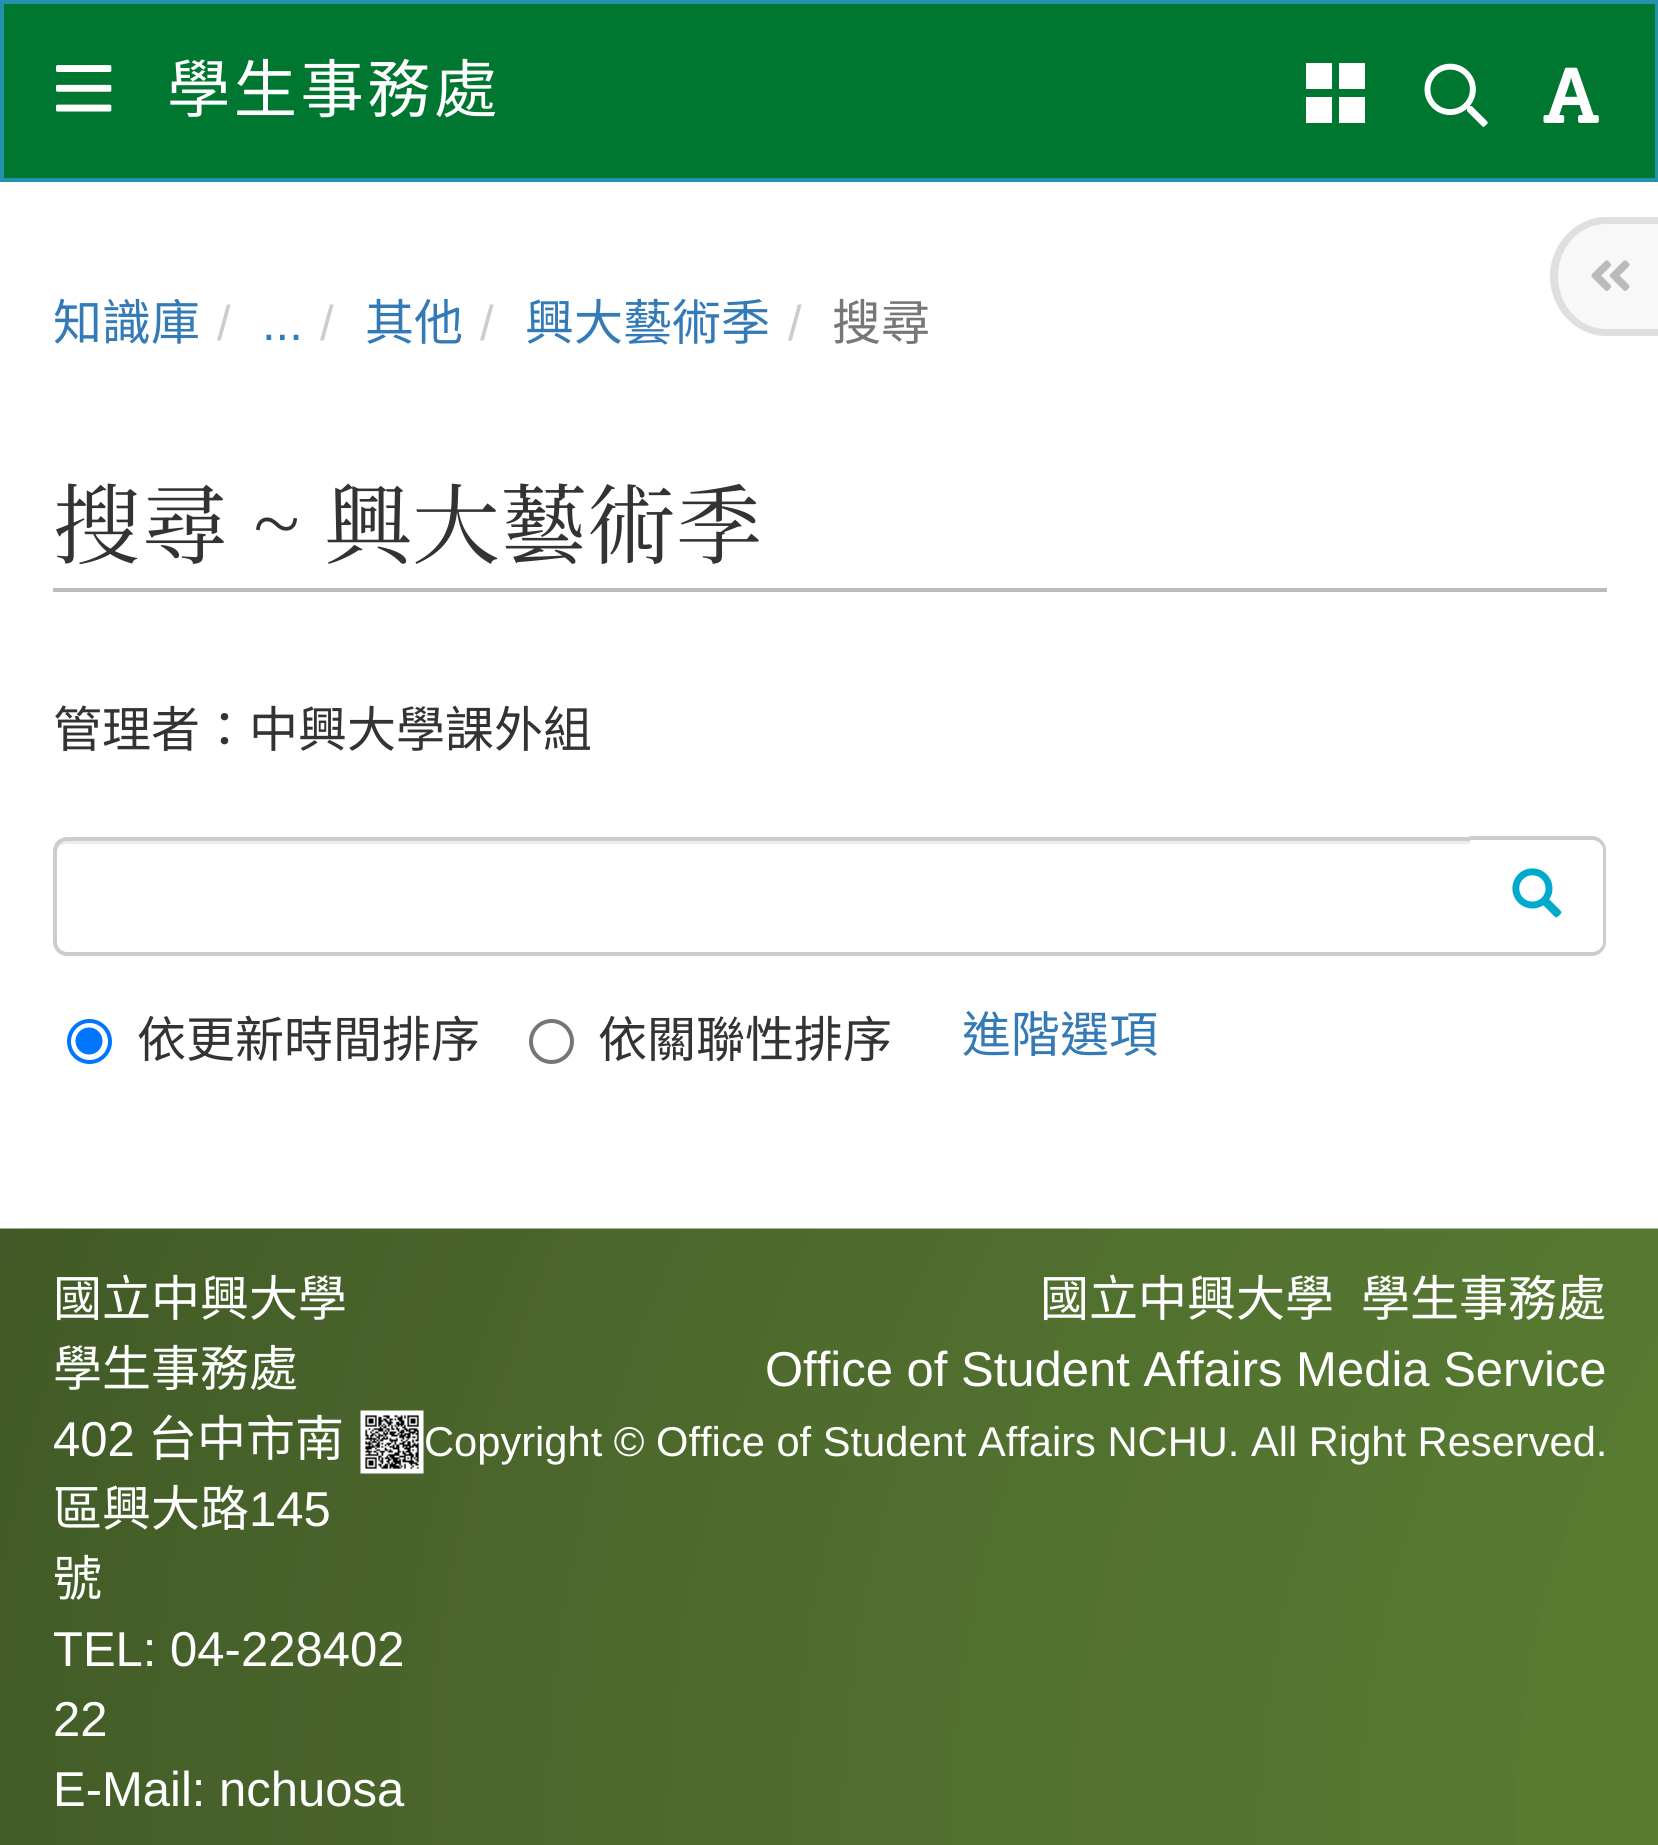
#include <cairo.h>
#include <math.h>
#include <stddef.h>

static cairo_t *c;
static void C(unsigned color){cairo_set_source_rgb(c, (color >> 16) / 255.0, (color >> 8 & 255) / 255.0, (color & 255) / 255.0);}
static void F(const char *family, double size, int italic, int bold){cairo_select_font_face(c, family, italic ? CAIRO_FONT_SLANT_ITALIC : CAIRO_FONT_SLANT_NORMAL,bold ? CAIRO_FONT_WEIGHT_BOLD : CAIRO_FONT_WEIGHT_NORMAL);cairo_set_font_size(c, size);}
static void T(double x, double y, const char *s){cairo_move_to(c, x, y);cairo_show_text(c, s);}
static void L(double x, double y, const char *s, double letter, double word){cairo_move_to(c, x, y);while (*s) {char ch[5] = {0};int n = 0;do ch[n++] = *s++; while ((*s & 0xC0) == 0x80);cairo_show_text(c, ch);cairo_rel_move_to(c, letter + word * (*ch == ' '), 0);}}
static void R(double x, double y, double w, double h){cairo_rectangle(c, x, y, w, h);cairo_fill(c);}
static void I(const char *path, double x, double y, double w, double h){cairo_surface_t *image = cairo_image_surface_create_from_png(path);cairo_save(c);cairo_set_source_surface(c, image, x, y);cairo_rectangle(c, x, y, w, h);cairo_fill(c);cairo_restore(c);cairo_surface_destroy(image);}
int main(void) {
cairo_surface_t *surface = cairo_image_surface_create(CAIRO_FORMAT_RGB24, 1658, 1845);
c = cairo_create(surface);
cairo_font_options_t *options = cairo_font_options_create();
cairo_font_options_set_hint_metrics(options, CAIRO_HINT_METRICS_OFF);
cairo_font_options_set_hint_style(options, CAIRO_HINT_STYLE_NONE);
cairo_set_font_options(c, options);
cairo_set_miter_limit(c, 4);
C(0xffffff);
cairo_paint(c);
C(0x007731);
cairo_rectangle(c,2,2,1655,178);
cairo_fill_preserve(c);
C(0x2392ae);
cairo_set_line_width(c,4);
cairo_stroke(c);
I("1.png",56,65,56,47);
F("Noto Sans CJK TC",63.25,0,0);
C(0xffffff);
L(167,112,"學生事務處",3.5,0);
cairo_new_path(c);
cairo_move_to(c,1306,63);
cairo_line_to(c,1332,63);
cairo_line_to(c,1332,89);
cairo_line_to(c,1306,89);
cairo_close_path(c);
cairo_move_to(c,1339,63);
cairo_line_to(c,1339,89);
cairo_line_to(c,1365,89);
cairo_line_to(c,1365,63);
cairo_close_path(c);
cairo_move_to(c,1306,123);
cairo_line_to(c,1332,123);
cairo_line_to(c,1332,97);
cairo_line_to(c,1306,97);
cairo_close_path(c);
cairo_move_to(c,1339,123);
cairo_line_to(c,1365,123);
cairo_line_to(c,1365,97);
cairo_line_to(c,1339,97);
cairo_close_path(c);
cairo_fill(c);
I("2.png",1424,63,64,64);
I("3.png",1543,67,56,56);
C(0xf8f8f8);
cairo_new_path(c);
cairo_move_to(c,1606,217);
cairo_line_to(c,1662,217);
cairo_line_to(c,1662,336);
cairo_line_to(c,1606,336);
cairo_curve_to(c,1576,336,1550,309,1550,276);
cairo_curve_to(c,1550,244,1576,217,1606,217);
cairo_close_path(c);
cairo_fill(c);
C(0xdfdfdf);
cairo_set_fill_rule(c,CAIRO_FILL_RULE_EVEN_ODD);
cairo_new_path(c);
cairo_move_to(c,1606,217);
cairo_line_to(c,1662,217);
cairo_line_to(c,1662,336);
cairo_line_to(c,1606,336);
cairo_curve_to(c,1576,336,1550,309,1550,276);
cairo_curve_to(c,1550,244,1576,217,1606,217);
cairo_close_path(c);
cairo_move_to(c,1606,224);
cairo_line_to(c,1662,224);
cairo_line_to(c,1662,329);
cairo_line_to(c,1606,329);
cairo_curve_to(c,1579,329,1558,305,1558,276);
cairo_curve_to(c,1558,248,1579,224,1606,224);
cairo_close_path(c);
cairo_fill(c);
I("4.png",1591,260,39,31);
F("Noto Sans CJK TC",49,0,0);
C(0x337ab7);
T(53,340,"知識庫");
F("Liberation Sans",49,0,0);
C(0xcccccc);
T(217,340,"/");
C(0x337ab7);
T(262,340,"...");
C(0xcccccc);
T(320,340,"/");
F("Noto Sans CJK TC",49,0,0);
C(0x337ab7);
T(365,340,"其他");
F("Liberation Sans",49,0,0);
C(0xcccccc);
T(480,340,"/");
F("Noto Sans CJK TC",49,0,0);
C(0x337ab7);
T(525,340,"興大藝術季");
F("Liberation Sans",49,0,0);
C(0xcccccc);
T(788,340,"/");
F("Noto Sans CJK TC",49,0,0);
C(0x777777);
T(832,340,"搜尋");
C(0xbbbbbb);
R(53,588,1554,4);
F("Noto Serif TC ExtraLight",87.75,0,0);
C(0x333333);
T(53,557,"搜尋 ~ 興大藝術季");
F("Noto Sans CJK TC",49,0,0);
T(53,747,"管理者：中興大學課外組");
C(0xececec);
cairo_set_fill_rule(c,CAIRO_FILL_RULE_WINDING);
cairo_new_path(c);
cairo_move_to(c,66,844);
cairo_line_to(c,1470,844);
cairo_line_to(c,1470,840);
cairo_line_to(c,67,840);
cairo_curve_to(c,59,840,56,847,56,854);
cairo_curve_to(c,56,848,61,844,66,844);
cairo_close_path(c);
cairo_fill(c);
cairo_new_path(c);
cairo_move_to(c,67,839);
cairo_line_to(c,1472,839);
cairo_line_to(c,1472,954);
cairo_line_to(c,67,954);
cairo_curve_to(c,60.5,954,55,948.5,55,942);
cairo_line_to(c,55,851);
cairo_curve_to(c,55,844.5,60.5,839,67,839);
cairo_close_path(c);
C(0xcccccc);
cairo_stroke(c);
C(0xffffff);
cairo_new_path(c);
cairo_move_to(c,1470,837);
cairo_line_to(c,1593,837);
cairo_curve_to(c,1600.5,837,1607,843.5,1607,851);
cairo_line_to(c,1607,942);
cairo_curve_to(c,1607,949.5,1600.5,956,1593,956);
cairo_line_to(c,1470,956);
cairo_close_path(c);
cairo_fill(c);
C(0xcccccc);
cairo_set_fill_rule(c,CAIRO_FILL_RULE_EVEN_ODD);
cairo_new_path(c);
cairo_move_to(c,1470,836);
cairo_line_to(c,1592,836);
cairo_curve_to(c,1600,836,1606,843,1606,850);
cairo_line_to(c,1606,942);
cairo_curve_to(c,1606,949,1600,956,1592,956);
cairo_line_to(c,1470,956);
cairo_close_path(c);
cairo_move_to(c,1470,840);
cairo_line_to(c,1592,840);
cairo_curve_to(c,1598,840,1603,845,1603,850);
cairo_line_to(c,1603,942);
cairo_curve_to(c,1603,947,1598,952,1592,952);
cairo_line_to(c,1470,952);
cairo_close_path(c);
cairo_fill(c);
I("5.png",1512,868,50,50);
cairo_arc(c,89.5,1041.5,20.5,0,2 * M_PI);
C(0x0075ff);
cairo_stroke(c);
cairo_arc(c,89,1041,13.5,0,2 * M_PI);
cairo_fill(c);
C(0x333333);
T(137,1057,"依更新時間排序");
cairo_new_path(c);
cairo_arc(c,551.5,1041.5,20.5,0,2 * M_PI);
C(0x767676);
cairo_stroke(c);
C(0x333333);
T(598,1057,"依關聯性排序");
C(0x337ab7);
T(962,1052,"進階選項");
I("6.png",0,1228,1658,617);
C(0xffffff);
T(53,1316,"國立中興大學");
T(53,1386,"學生事務處");
F("Liberation Sans",49,0,0);
T(53,1456,"402");
F("Noto Sans CJK TC",49,0,0);
T(148,1456,"台中市南");
T(53,1526,"區興大路");
F("Liberation Sans",49,0,0);
T(249,1526,"145");
F("Noto Sans CJK TC",49,0,0);
T(53,1596,"號");
I("7.png",360,1410,64,64);
F("Liberation Sans",49,0,0);
T(53,1666,"TEL: 04-228402");
T(53,1736,"22");
T(53,1806,"E-Mail: nchuosa");
F("Noto Sans CJK TC",49,0,0);
T(1040,1316,"國立中興大學");
T(1361,1316,"學生事務處");
F("Liberation Sans",49,0,0);
T(765,1386,"Office of Student Affairs Media Service");
F("Liberation Sans",41.65,0,0);
T(424,1456,"Copyright © Office of Student Affairs NCHU. All Right Reserved.");
cairo_surface_write_to_png(surface, "o.png");
cairo_font_options_destroy(options);
cairo_destroy(c);
cairo_surface_destroy(surface);
return 0;
}
